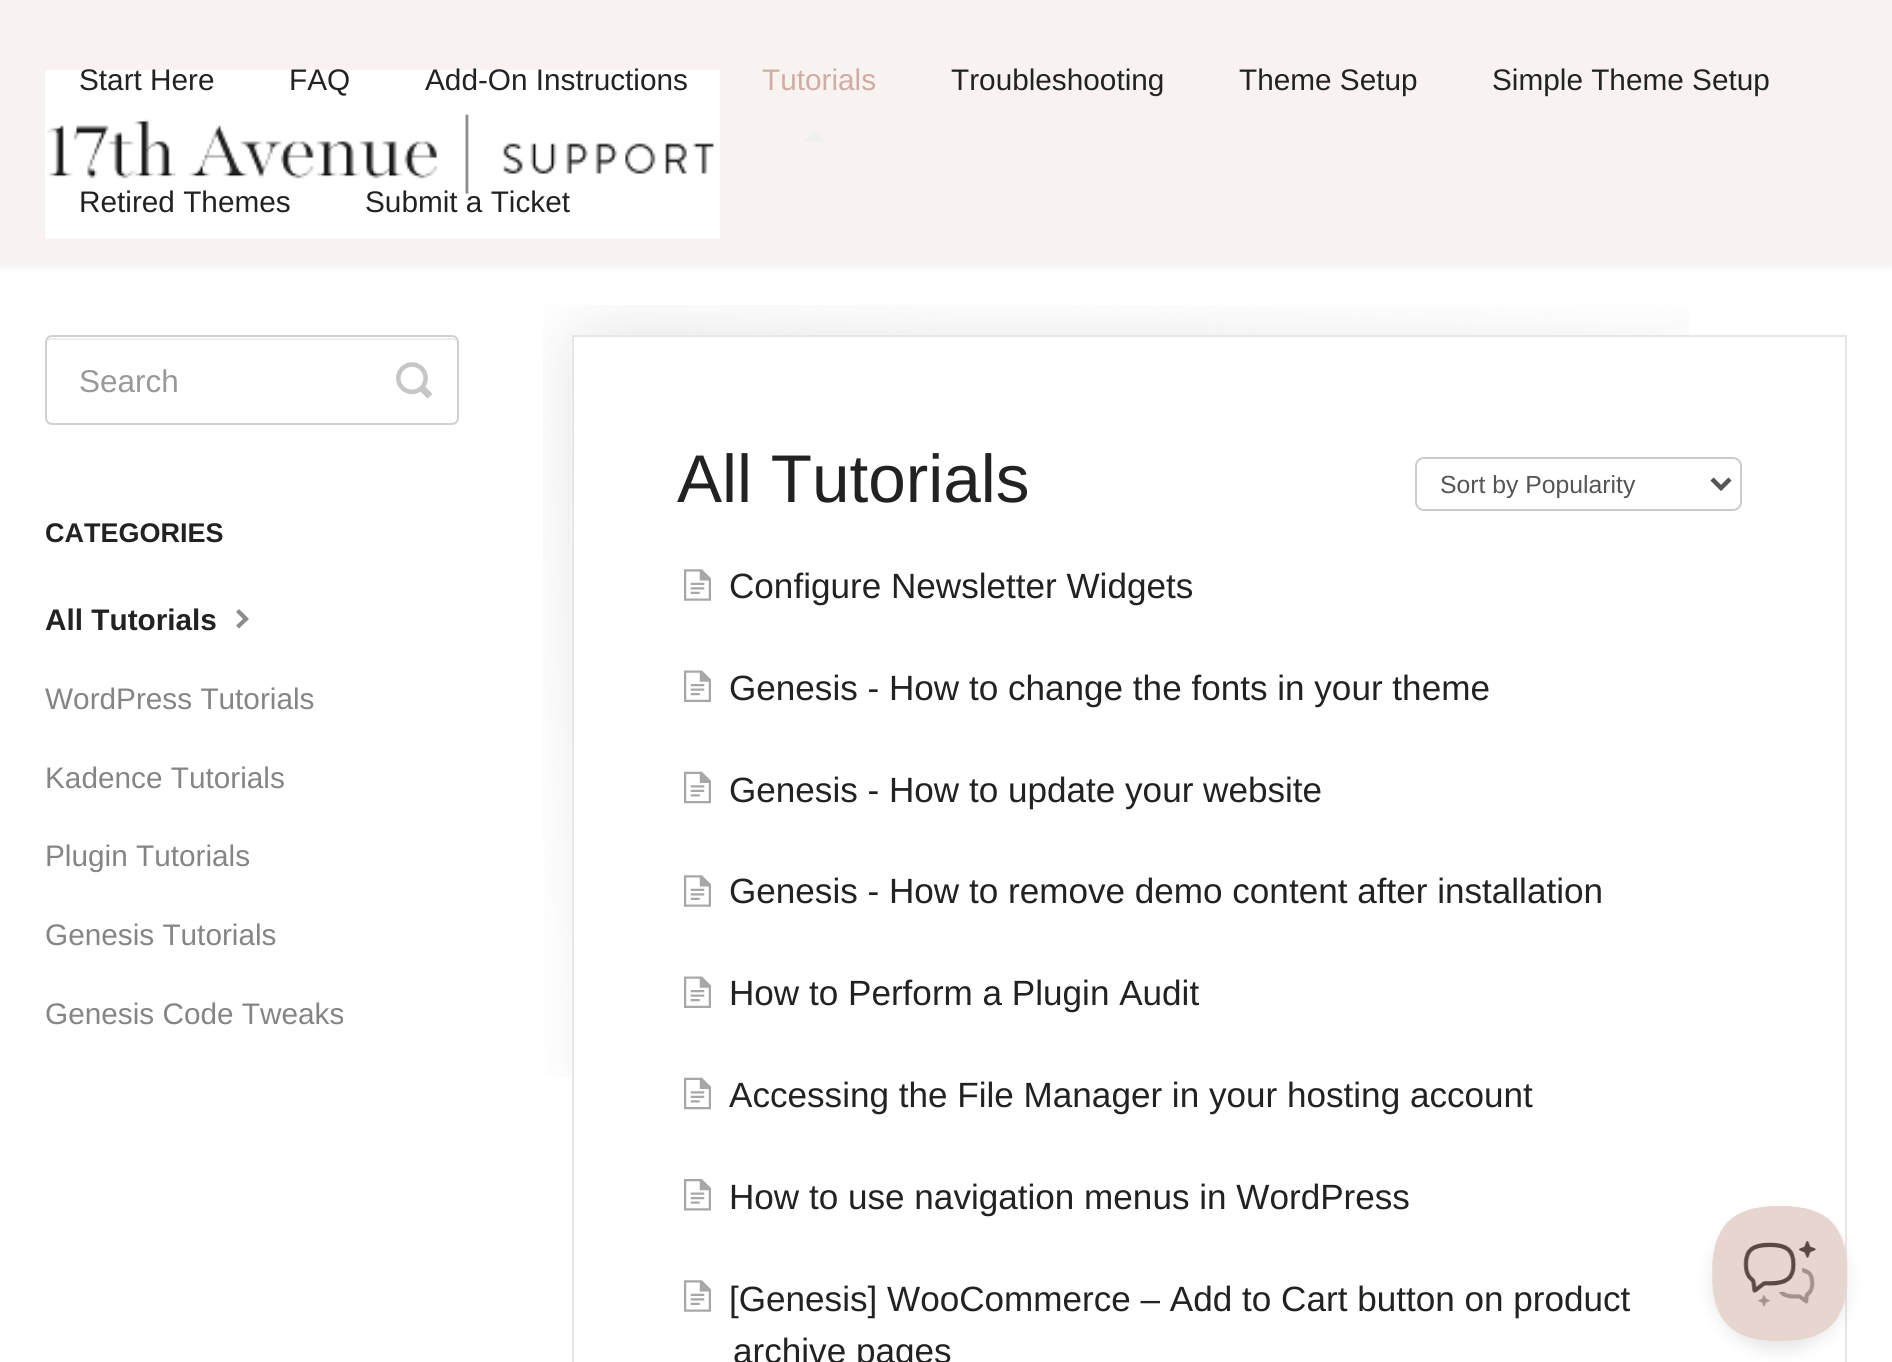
#include <cairo.h>
#include <math.h>
#include <stddef.h>

static cairo_t *c;
static void C(unsigned color){cairo_set_source_rgb(c, (color >> 16) / 255.0, (color >> 8 & 255) / 255.0, (color & 255) / 255.0);}
static void F(const char *family, double size, int italic, int bold){cairo_select_font_face(c, family, italic ? CAIRO_FONT_SLANT_ITALIC : CAIRO_FONT_SLANT_NORMAL,bold ? CAIRO_FONT_WEIGHT_BOLD : CAIRO_FONT_WEIGHT_NORMAL);cairo_set_font_size(c, size);}
static void T(double x, double y, const char *s){cairo_move_to(c, x, y);cairo_show_text(c, s);}
static void R(double x, double y, double w, double h){cairo_rectangle(c, x, y, w, h);cairo_fill(c);}
static void Q(double x, double y, double w, double h, double r){cairo_new_sub_path(c);cairo_arc(c, x + w - r, y + h - r, r, 0, M_PI / 2);cairo_arc(c, x + r, y + h - r, r, M_PI / 2, M_PI);cairo_arc(c, x + r, y + r, r, M_PI, 1.5 * M_PI);cairo_arc(c, x + w - r, y + r, r, 1.5 * M_PI, 2 * M_PI);cairo_close_path(c);}
static void S(double x, double y, double w, double h, double r, double blur, double alpha){cairo_push_group_with_content(c, CAIRO_CONTENT_ALPHA);cairo_set_operator(c, CAIRO_OPERATOR_SOURCE);for (int i = 15; i >= -15 && fmin(w, h) + blur * i / 3 > 0; i -= 2) {double e = blur * i / 6;cairo_set_source_rgba(c, 0, 0, 0, alpha * erfc((i - 1) / 8.5) / 2);Q(x - e, y - e, w + 2 * e, h + 2 * e, fmax(0, fmin(r + e + blur * .6, fmin(w, h) / 2 + e)));cairo_fill(c);}cairo_pattern_t *soft = cairo_pop_group(c);cairo_mask(c, soft);cairo_pattern_destroy(soft);}
static void I(const char *path, double x, double y, double w, double h){cairo_surface_t *image = cairo_image_surface_create_from_png(path);cairo_save(c);cairo_set_source_surface(c, image, x, y);cairo_rectangle(c, x, y, w, h);cairo_fill(c);cairo_restore(c);cairo_surface_destroy(image);}
int main(void) {
cairo_surface_t *surface = cairo_image_surface_create(CAIRO_FORMAT_RGB24, 1892, 1362);
c = cairo_create(surface);
cairo_font_options_t *options = cairo_font_options_create();
cairo_font_options_set_hint_metrics(options, CAIRO_HINT_METRICS_OFF);
cairo_font_options_set_hint_style(options, CAIRO_HINT_STYLE_NONE);
cairo_set_font_options(c, options);
cairo_set_miter_limit(c, 4);
C(0xffffff);
cairo_paint(c);
C(0x000000);
S(0,2,1892,264,0,4.5,.07);
C(0xf8f3f1);
R(0,0,1892,263);
I("1.png",45,70,675,169);
F("Liberation Sans",29.75,0,0);
C(0x222222);
T(79,90,"Start Here");
T(289,90,"FAQ");
T(425,90,"Add-On Instructions");
C(0xd0ada2);
T(762,90,"Tutorials");
C(0xf0f0f0);
cairo_new_path(c);
cairo_move_to(c,826,142);
cairo_line_to(c,803,142);
cairo_line_to(c,814.5,130.5);
cairo_close_path(c);
cairo_fill(c);
C(0x222222);
T(951,90,"Troubleshooting");
T(1239,90,"Theme Setup");
T(1492,90,"Simple Theme Setup");
T(79,212,"Retired Themes");
T(365,212,"Submit a Ticket");
C(0xececec);
cairo_new_path(c);
cairo_move_to(c,52,340);
cairo_line_to(c,452,340);
cairo_curve_to(c,455,340,457,342,457,344);
cairo_line_to(c,457,343);
cairo_curve_to(c,457,340,455,338,452,338);
cairo_line_to(c,52,338);
cairo_curve_to(c,49,338,47,340,47,343);
cairo_line_to(c,47,344);
cairo_curve_to(c,47,342,49,340,52,340);
cairo_close_path(c);
cairo_fill(c);
Q(46,336,412,88,6);
C(0xd0d0d0);
cairo_stroke(c);
F("Liberation Sans",31.5,0,0);
C(0x999999);
T(79,392,"Search");
I("2.png",396,362,36,37);
F("Liberation Sans",27,0,1);
C(0x222222);
T(45,542,"CATEGORIES");
F("Liberation Sans",29.75,0,1);
T(45,630,"All Tutorials");
C(0x8d8d8d);
cairo_new_path(c);
cairo_move_to(c,239,609);
cairo_line_to(c,236,612);
cairo_line_to(c,243,619);
cairo_line_to(c,236,625.5);
cairo_line_to(c,239,628.5);
cairo_line_to(c,249,619);
cairo_close_path(c);
cairo_fill(c);
F("Liberation Sans",29.75,0,0);
C(0x858585);
T(45,709,"WordPress Tutorials");
T(45,788,"Kadence Tutorials");
T(45,866,"Plugin Tutorials");
T(45,945,"Genesis Tutorials");
T(45,1024,"Genesis Code Tweaks");
I("3.png",543,305,1146,772);
cairo_rectangle(c,573,336,1273,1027);
C(0xe9e5e5);
cairo_stroke(c);
F("Liberation Sans",67.5,0,0);
C(0x222222);
T(677,502,"All Tutorials");
Q(1416,458,325,52,8);
C(0xcccccc);
cairo_stroke(c);
cairo_new_path(c);
cairo_move_to(c,1712,479);
cairo_line_to(c,1721,488);
cairo_line_to(c,1730,479);
C(0x555555);
cairo_set_line_width(c,4.5);
cairo_stroke(c);
F("Liberation Sans",24.75,0,0);
T(1440,493,"Sort by Popularity");
I("4.png",684,569,27,32);
F("Liberation Sans",35.1,0,0);
C(0x222222);
T(729,598,"Configure Newsletter Widgets");
I("5.png",684,670,27,32);
T(729,700,"Genesis - How to change the fonts in your theme");
I("6.png",684,771,27,33);
T(729,802,"Genesis - How to update your website");
I("4.png",684,875,27,32);
T(729,903,"Genesis - How to remove demo content after installation");
I("5.png",684,976,27,32);
T(729,1005,"How to Perform a Plugin Audit");
I("6.png",684,1077,27,33);
T(729,1107,"Accessing the File Manager in your hosting account");
I("7.png",684,1179,27,32);
T(729,1209,"How to use navigation menus in WordPress");
I("4.png",684,1280,27,32);
T(729,1311,"[Genesis] WooCommerce – Add to Cart button on product");
T(733,1363,"archive pages");
C(0x000000);
S(1712,1215,135,135,67.5,8,.1);
I("8.png",1712,1206,136,135);
cairo_surface_write_to_png(surface, "o.png");
cairo_font_options_destroy(options);
cairo_destroy(c);
cairo_surface_destroy(surface);
return 0;
}
